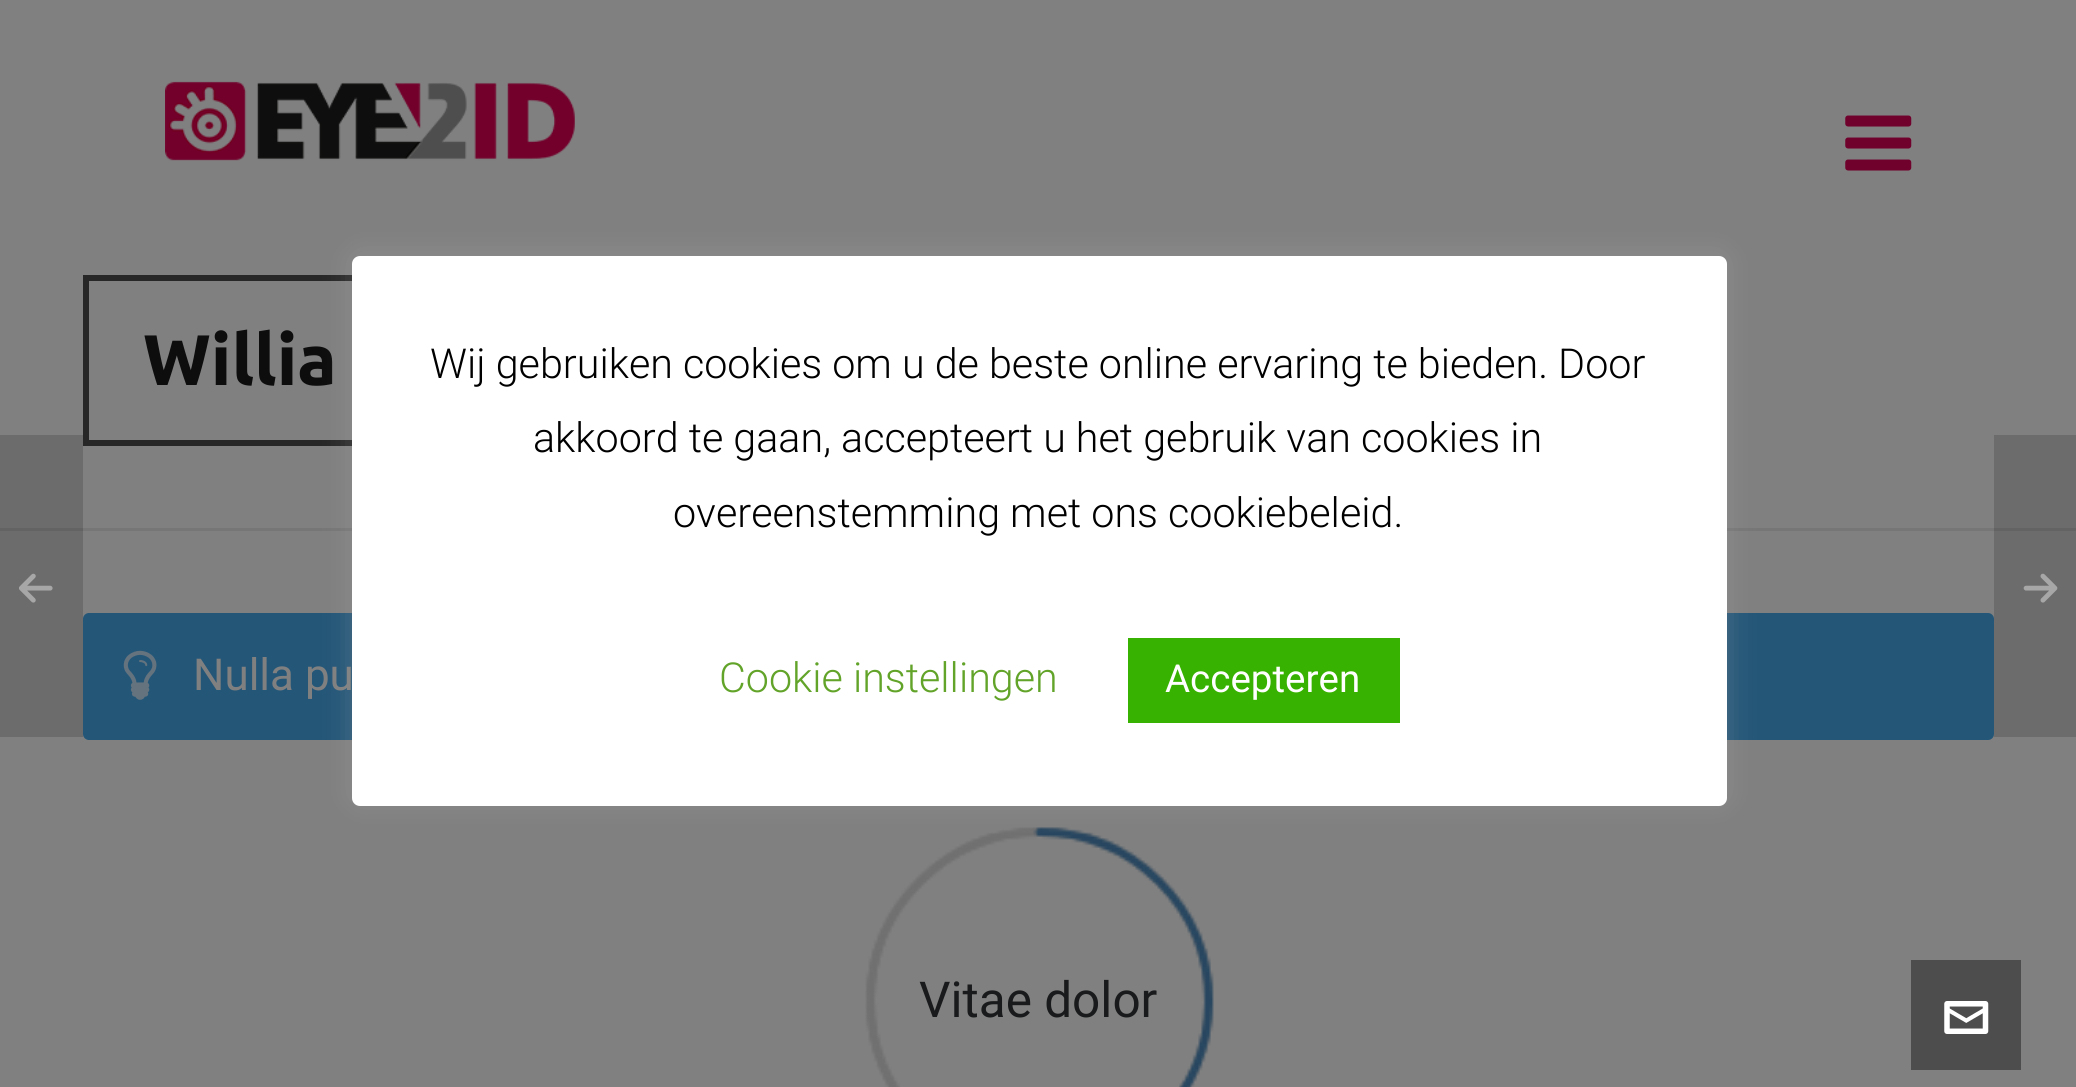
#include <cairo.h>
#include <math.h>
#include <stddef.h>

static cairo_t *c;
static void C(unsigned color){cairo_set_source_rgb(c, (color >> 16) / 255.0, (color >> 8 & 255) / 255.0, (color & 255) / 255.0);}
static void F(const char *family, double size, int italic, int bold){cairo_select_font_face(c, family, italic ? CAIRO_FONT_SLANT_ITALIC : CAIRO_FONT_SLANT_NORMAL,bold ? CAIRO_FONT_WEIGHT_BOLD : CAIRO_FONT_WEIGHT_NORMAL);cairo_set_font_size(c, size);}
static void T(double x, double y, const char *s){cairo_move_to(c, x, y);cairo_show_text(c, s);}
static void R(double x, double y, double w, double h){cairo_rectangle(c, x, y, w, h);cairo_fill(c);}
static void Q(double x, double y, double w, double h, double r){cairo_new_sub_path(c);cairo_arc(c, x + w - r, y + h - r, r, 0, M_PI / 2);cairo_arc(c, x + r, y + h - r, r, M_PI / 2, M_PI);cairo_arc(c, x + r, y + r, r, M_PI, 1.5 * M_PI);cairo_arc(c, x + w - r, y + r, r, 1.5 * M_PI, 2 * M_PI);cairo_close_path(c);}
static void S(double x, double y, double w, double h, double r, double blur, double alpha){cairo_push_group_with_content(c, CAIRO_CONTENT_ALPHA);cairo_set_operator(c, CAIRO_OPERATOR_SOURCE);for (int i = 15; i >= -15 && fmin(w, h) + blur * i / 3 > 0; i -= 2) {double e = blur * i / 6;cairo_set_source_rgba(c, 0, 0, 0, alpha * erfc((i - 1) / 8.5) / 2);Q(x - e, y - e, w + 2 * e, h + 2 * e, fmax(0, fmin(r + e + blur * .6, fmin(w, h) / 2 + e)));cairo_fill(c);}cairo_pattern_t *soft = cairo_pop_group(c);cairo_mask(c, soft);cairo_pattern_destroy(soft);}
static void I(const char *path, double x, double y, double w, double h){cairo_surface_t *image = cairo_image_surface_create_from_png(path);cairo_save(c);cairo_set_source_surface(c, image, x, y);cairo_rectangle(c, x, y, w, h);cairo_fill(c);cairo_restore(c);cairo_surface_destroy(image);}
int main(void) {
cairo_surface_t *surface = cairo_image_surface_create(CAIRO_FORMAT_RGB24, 2076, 1087);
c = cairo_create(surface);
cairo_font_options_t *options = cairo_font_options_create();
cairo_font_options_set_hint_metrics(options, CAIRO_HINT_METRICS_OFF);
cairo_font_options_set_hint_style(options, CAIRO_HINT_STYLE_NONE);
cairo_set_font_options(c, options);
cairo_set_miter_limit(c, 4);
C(0x808080);
cairo_paint(c);
C(0x6c6c6c);
R(1994,435,82,302);
R(0,435,83,302);
I("1.png",165,81,410,80);
I("2.png",1845,115,67,56);
C(0x767676);
R(83,528,1911,3);
C(0x636363);
R(1994,528,82,3);
R(0,528,83,3);
cairo_rectangle(c,86,278,645,165);
C(0x272727);
cairo_set_line_width(c,6);
cairo_stroke(c);
F("Ubuntu",71.5,0,1);
C(0x0d0d0d);
T(143,385,"Willia");
I("3.png",19,573,34,30);
I("4.png",2023,573,35,30);
C(0x245678);
Q(83,613,1911,127,6);
cairo_fill(c);
I("5.png",123,650,34,50);
F("Roboto",44,0,0);
C(0x808080);
T(193,690,"Nulla pu");
I("6.png",865,827,349,260);
F("Roboto",49.5,0,0);
C(0x191a1b);
T(919,1017,"Vitae dolor");
C(0x4d4d4d);
R(1911,960,110,110);
I("7.png",1944,1001,45,33);
C(0xacabab);
S(352,253,1375,550,8,14,.3);
C(0xffffff);
Q(352,256,1375,550,8);
cairo_fill(c);
F("Roboto Light",41.25,0,0);
C(0x000000);
T(430,378,"Wij gebruiken cookies om u de beste online ervaring te bieden. Door");
T(533,452,"akkoord te gaan, accepteert u het gebruik van cookies in");
T(673,527,"overeenstemming met ons cookiebeleid.");
C(0x62a329);
T(719,692,"Cookie instellingen");
C(0x38b200);
R(1128,638,272,85);
F("Roboto",38.5,0,0);
C(0xffffff);
T(1165,692,"Accepteren");
cairo_surface_write_to_png(surface, "o.png");
cairo_font_options_destroy(options);
cairo_destroy(c);
cairo_surface_destroy(surface);
return 0;
}
